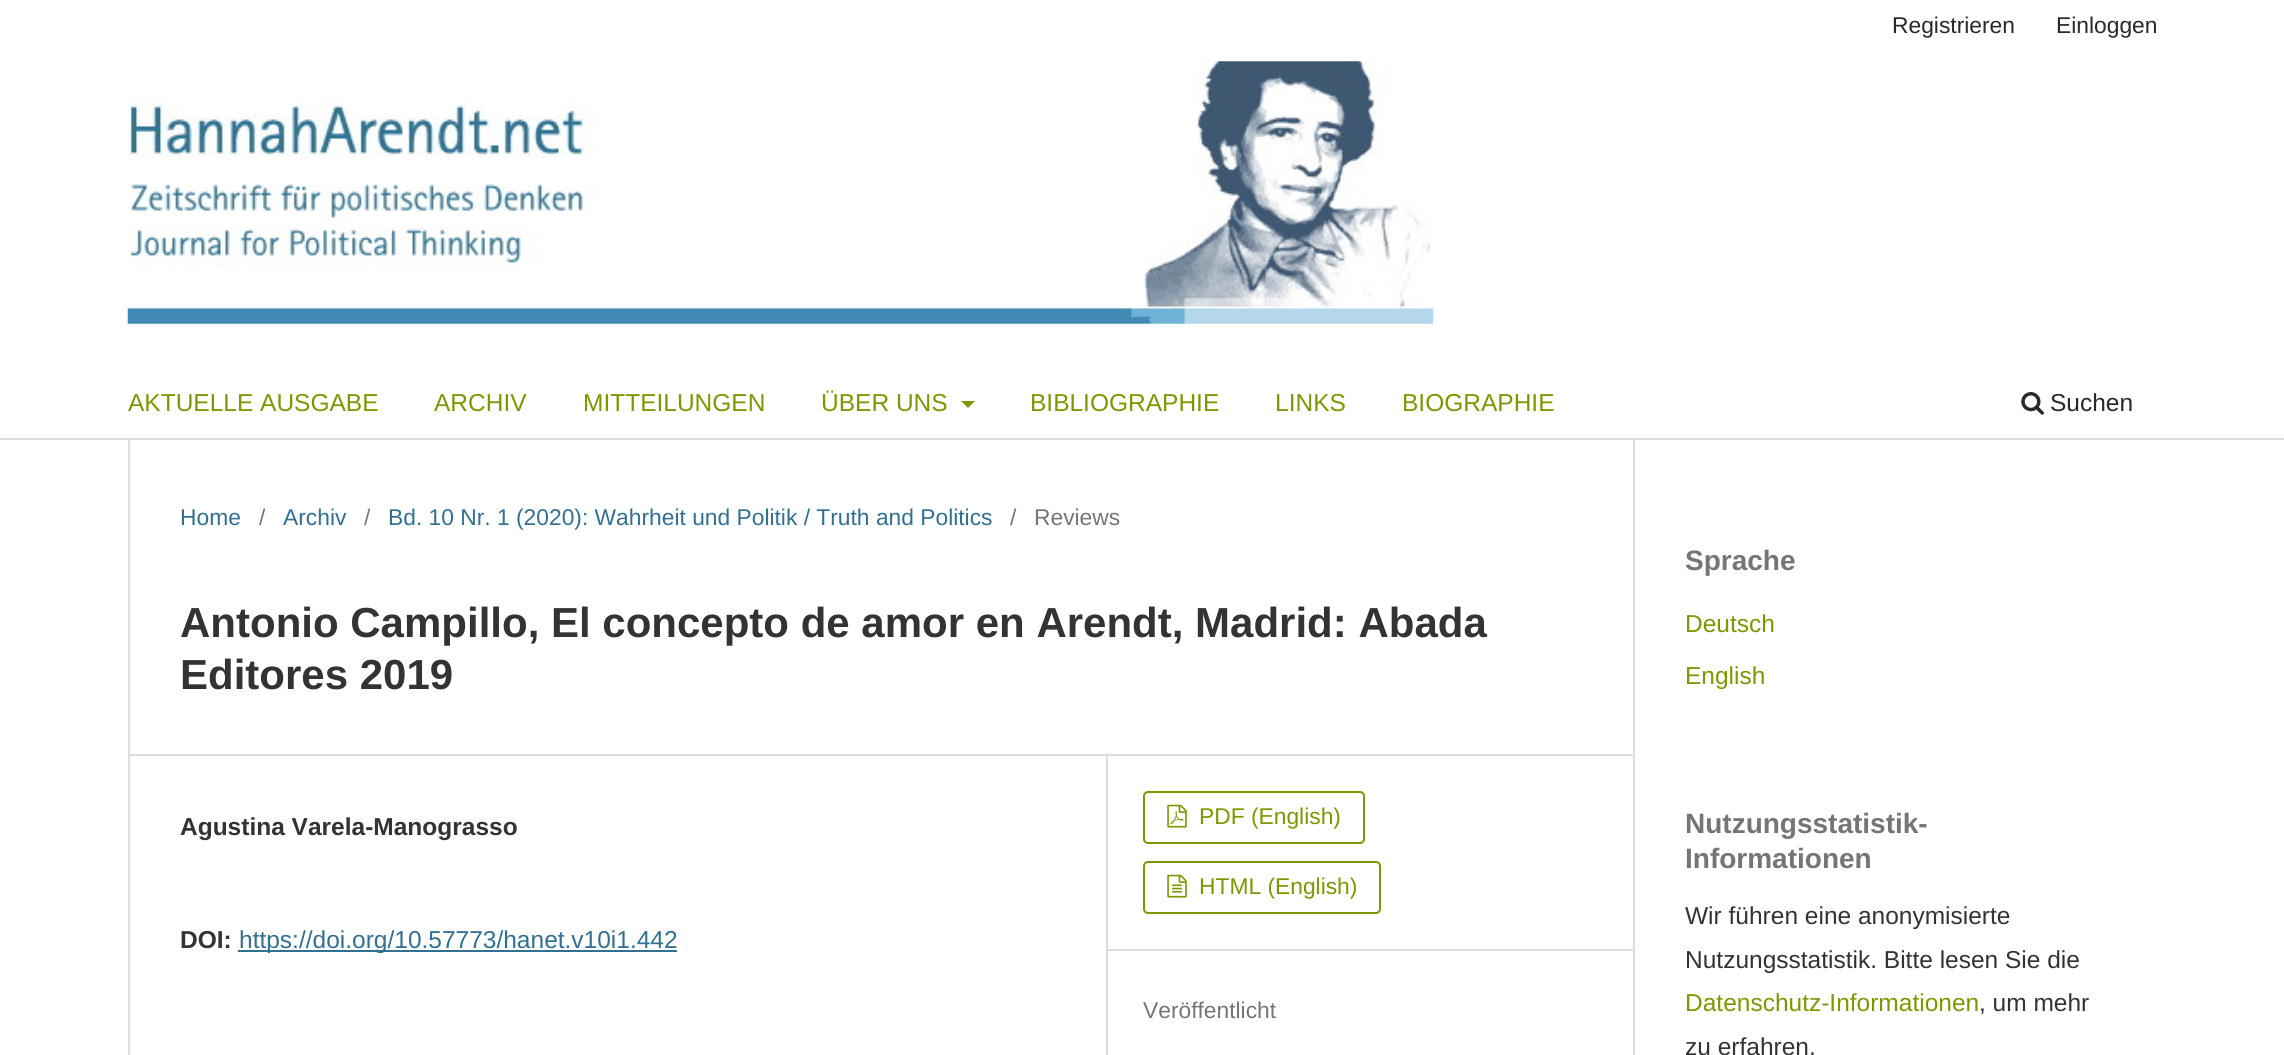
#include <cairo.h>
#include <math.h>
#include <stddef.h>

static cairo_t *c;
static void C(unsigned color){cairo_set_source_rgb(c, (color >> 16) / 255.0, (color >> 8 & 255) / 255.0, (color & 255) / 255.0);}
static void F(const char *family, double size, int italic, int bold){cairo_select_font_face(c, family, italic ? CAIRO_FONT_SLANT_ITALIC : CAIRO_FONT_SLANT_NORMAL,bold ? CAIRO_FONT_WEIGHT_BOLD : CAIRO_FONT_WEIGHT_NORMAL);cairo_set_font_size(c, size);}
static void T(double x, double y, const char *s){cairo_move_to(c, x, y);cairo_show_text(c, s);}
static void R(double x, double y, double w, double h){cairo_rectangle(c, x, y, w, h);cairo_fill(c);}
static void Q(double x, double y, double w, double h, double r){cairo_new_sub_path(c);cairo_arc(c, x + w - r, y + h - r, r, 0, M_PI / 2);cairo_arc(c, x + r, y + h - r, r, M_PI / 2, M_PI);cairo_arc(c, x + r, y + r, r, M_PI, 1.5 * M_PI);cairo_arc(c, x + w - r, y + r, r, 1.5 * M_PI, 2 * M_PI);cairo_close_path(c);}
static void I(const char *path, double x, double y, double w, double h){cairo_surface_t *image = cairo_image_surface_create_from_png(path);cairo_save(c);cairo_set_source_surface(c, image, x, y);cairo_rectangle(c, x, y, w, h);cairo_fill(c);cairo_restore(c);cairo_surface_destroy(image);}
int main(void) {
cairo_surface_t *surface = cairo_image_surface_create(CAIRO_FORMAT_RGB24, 2284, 1055);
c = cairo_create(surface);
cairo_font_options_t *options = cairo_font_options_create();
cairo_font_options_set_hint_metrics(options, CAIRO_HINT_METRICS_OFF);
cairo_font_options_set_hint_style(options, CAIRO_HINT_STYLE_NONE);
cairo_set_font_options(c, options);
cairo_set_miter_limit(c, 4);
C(0xffffff);
cairo_paint(c);
C(0xdddddd);
R(0,438,2284,2);
F("Liberation Sans",22.8,0,0);
C(0x292929);
T(1892,33,"Registrieren");
T(2056,33,"Einloggen");
F("Liberation Sans",24.5,0,0);
C(0x7a9900);
T(128,411,"AKTUELLE AUSGABE");
T(434,411,"ARCHIV");
T(583,411,"MITTEILUNGEN");
T(821,411,"ÜBER UNS");
cairo_new_path(c);
cairo_move_to(c,961,401);
cairo_line_to(c,975,401);
cairo_line_to(c,968,408);
cairo_close_path(c);
cairo_fill(c);
T(1030,411,"BIBLIOGRAPHIE");
T(1275,411,"LINKS");
T(1402,411,"BIOGRAPHIE");
I("1.png",2021,392,23,23);
C(0x292929);
T(2050,411,"Suchen");
I("2.png",127,61,1307,263);
C(0xdddddd);
R(128,754,1505,2);
R(128,439,2,616);
F("Liberation Sans",22.8,0,0);
C(0x317091);
T(180,525,"Home");
C(0x757575);
T(259,525,"/");
C(0x317091);
T(283,525,"Archiv");
C(0x757575);
T(364,525,"/");
C(0x317091);
T(388,525,"Bd. 10 Nr. 1 (2020): Wahrheit und Politik / Truth and Politics");
C(0x757575);
T(1010,525,"/");
T(1034,525,"Reviews");
F("Liberation Sans",42,0,1);
C(0x333333);
T(180,637,"Antonio Campillo, El concepto de amor en Arendt, Madrid: Abada");
T(180,689,"Editores 2019");
C(0xdddddd);
R(1106,756,2,299);
F("Liberation Sans",24.5,0,1);
C(0x333333);
T(180,835,"Agustina Varela-Manograsso");
T(180,948,"DOI:");
C(0x317091);
R(238,950,439,2);
F("Liberation Sans",24.5,0,0);
T(239,948,"https://doi.org/10.57773/hanet.v10i1.442");
C(0xdddddd);
R(1108,949,525,2);
Q(1144,792,220,51,4);
C(0x7a9900);
cairo_stroke(c);
I("3.png",1167,804,20,24);
F("Liberation Sans",22.8,0,0);
T(1199,824,"PDF (English)");
Q(1144,862,236,51,4);
cairo_stroke(c);
I("4.png",1167,874,20,24);
T(1199,894,"HTML (English)");
C(0x757575);
T(1143,1018,"Veröffentlicht");
C(0xdddddd);
R(1633,439,2,616);
F("Liberation Sans",28,0,1);
C(0x757575);
T(1685,570,"Sprache");
F("Liberation Sans",24.5,0,0);
C(0x7a9900);
T(1685,632,"Deutsch");
T(1685,684,"English");
F("Liberation Sans",28,0,1);
C(0x757575);
T(1685,833,"Nutzungsstatistik-");
T(1685,868,"Informationen");
F("Liberation Sans",24.5,0,0);
C(0x333333);
T(1685,924,"Wir führen eine anonymisierte");
T(1685,968,"Nutzungsstatistik. Bitte lesen Sie die");
C(0x7a9900);
T(1685,1011,"Datenschutz-Informationen");
C(0x333333);
T(1979,1011,", um mehr");
T(1685,1055,"zu erfahren.");
cairo_surface_write_to_png(surface, "o.png");
cairo_font_options_destroy(options);
cairo_destroy(c);
cairo_surface_destroy(surface);
return 0;
}
